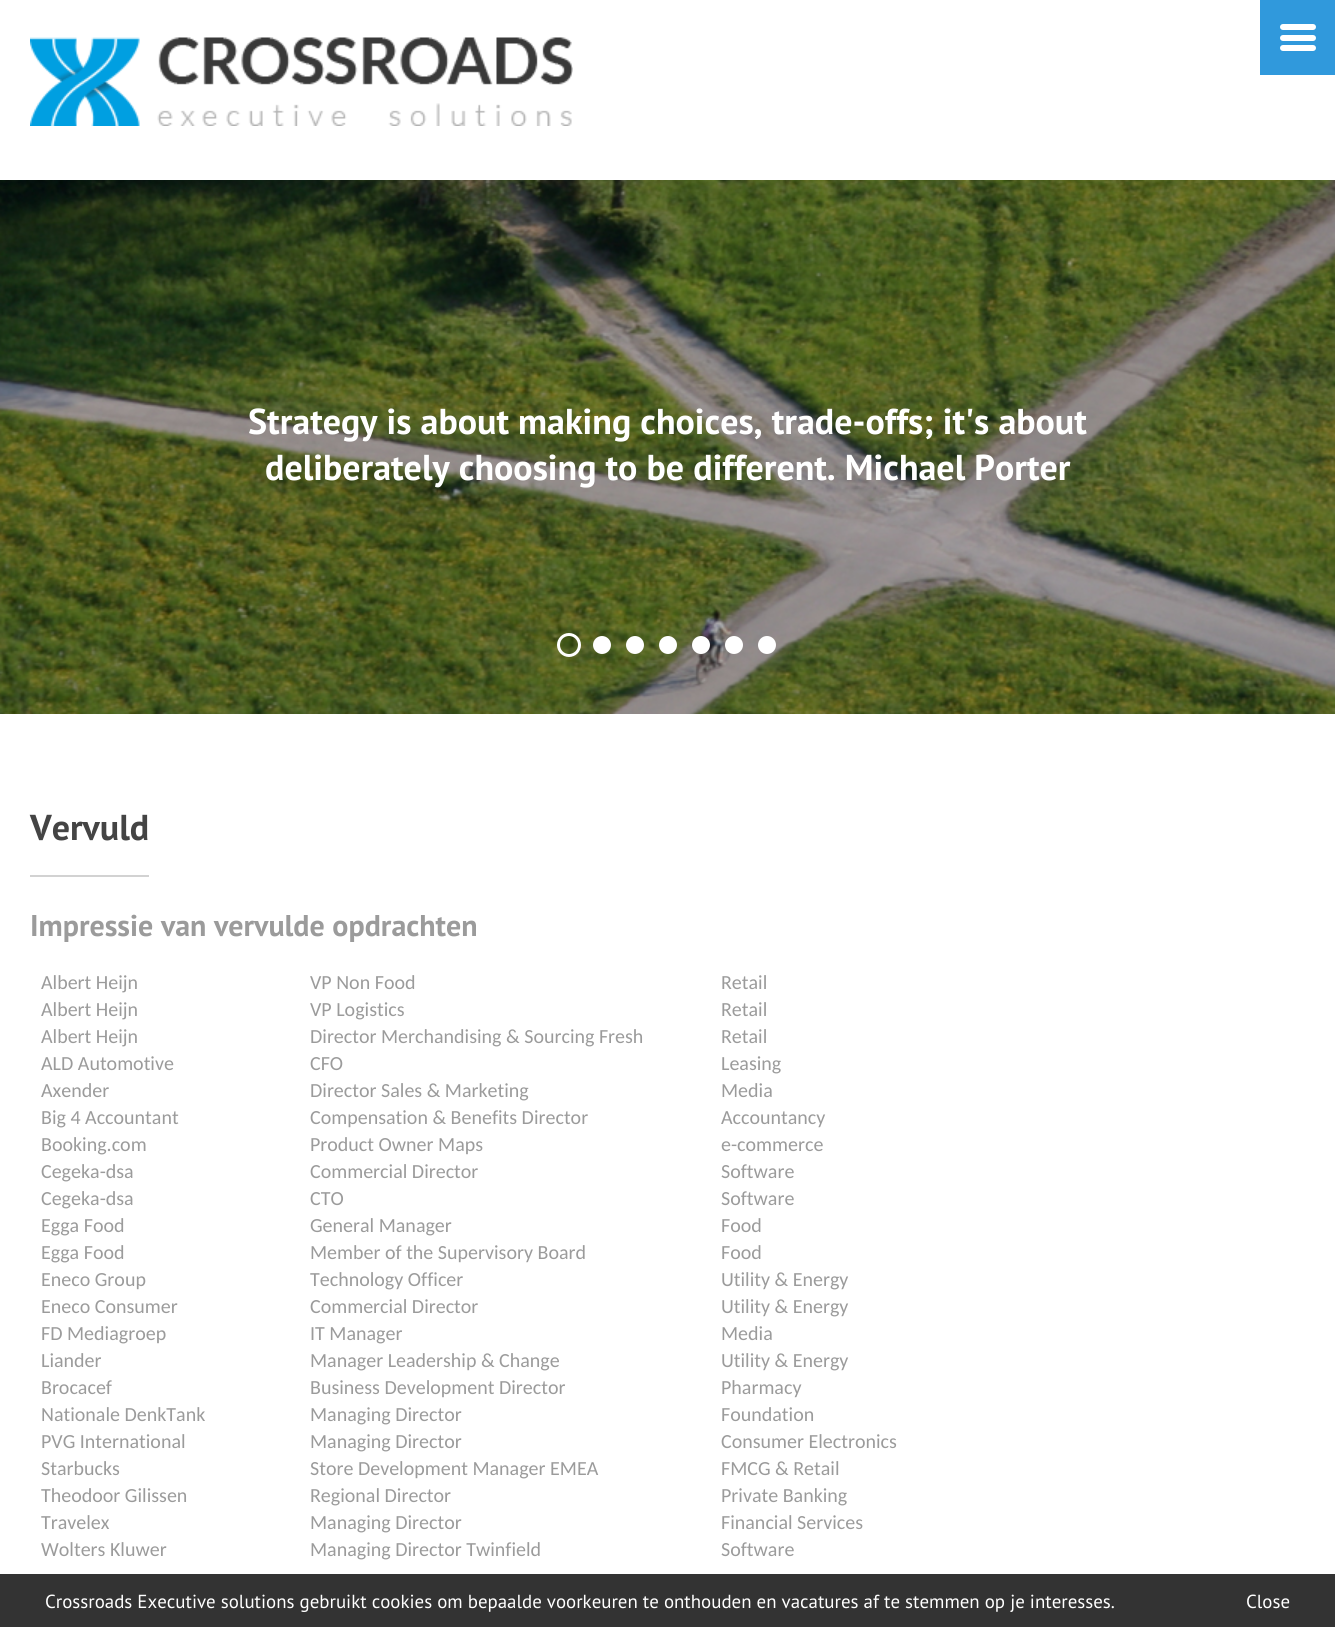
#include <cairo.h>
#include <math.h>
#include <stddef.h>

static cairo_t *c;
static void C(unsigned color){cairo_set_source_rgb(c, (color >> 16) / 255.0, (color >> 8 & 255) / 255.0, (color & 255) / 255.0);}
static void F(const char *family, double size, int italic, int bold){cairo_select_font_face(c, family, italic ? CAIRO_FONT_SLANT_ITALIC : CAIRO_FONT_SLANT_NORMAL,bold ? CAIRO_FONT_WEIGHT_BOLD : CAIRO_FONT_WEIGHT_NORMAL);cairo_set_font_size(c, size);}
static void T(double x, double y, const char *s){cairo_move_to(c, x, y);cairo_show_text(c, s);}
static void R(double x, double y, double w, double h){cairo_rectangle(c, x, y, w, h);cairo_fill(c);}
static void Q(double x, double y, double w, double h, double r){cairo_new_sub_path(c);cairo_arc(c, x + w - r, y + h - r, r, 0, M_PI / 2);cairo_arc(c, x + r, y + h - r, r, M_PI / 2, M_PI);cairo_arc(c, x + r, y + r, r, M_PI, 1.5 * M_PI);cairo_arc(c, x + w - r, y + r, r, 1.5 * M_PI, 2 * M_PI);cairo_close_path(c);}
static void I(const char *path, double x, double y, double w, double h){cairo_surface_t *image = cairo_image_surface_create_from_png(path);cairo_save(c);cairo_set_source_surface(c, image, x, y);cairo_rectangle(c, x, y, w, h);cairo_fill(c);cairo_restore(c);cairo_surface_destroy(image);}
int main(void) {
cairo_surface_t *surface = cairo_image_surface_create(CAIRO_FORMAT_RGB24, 1335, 1627);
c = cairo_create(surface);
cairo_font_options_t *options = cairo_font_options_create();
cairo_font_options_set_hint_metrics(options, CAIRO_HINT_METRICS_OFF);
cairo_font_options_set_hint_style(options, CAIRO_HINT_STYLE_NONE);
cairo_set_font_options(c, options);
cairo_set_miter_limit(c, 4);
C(0xffffff);
cairo_paint(c);
I("1.png",30,37,543,89);
C(0x3099dc);
R(1260,0,75,75);
C(0xffffff);
Q(1280,24,36,6,3);
cairo_fill(c);
Q(1280,35,36,6,3);
cairo_fill(c);
Q(1280,45,36,6,3);
cairo_fill(c);
I("2.png",0,180,1335,534);
F("PT Sans",36,0,1);
T(248,434,"Strategy is about making choices, trade-offs; it's about");
T(265,480,"deliberately choosing to be different. Michael Porter");
cairo_new_path(c);
cairo_arc(c,569,645,10.5,0,2 * M_PI);
cairo_set_line_width(c,3);
cairo_stroke(c);
cairo_arc(c,602,645,9,0,2 * M_PI);
cairo_fill(c);
cairo_arc(c,635,645,9,0,2 * M_PI);
cairo_fill(c);
cairo_arc(c,668,645,9,0,2 * M_PI);
cairo_fill(c);
cairo_arc(c,701,645,9,0,2 * M_PI);
cairo_fill(c);
cairo_arc(c,734,645,9,0,2 * M_PI);
cairo_fill(c);
cairo_arc(c,767,645,9,0,2 * M_PI);
cairo_fill(c);
C(0xd2d2d2);
R(30,875,119,2);
C(0x444444);
T(30,840,"Vervuld");
F("PT Sans",30,0,1);
C(0x9b9b9b);
T(30,936,"Impressie van vervulde opdrachten");
F("Carlito",20,0,0);
T(41,989,"Albert Heijn");
T(310,989,"VP Non Food");
T(721,989,"Retail");
T(41,1016,"Albert Heijn");
T(310,1016,"VP Logistics");
T(721,1016,"Retail");
T(41,1043,"Albert Heijn");
T(310,1043,"Director Merchandising & Sourcing Fresh");
T(721,1043,"Retail");
T(41,1070,"ALD Automotive");
T(310,1070,"CFO");
T(721,1070,"Leasing");
T(41,1097,"Axender");
T(310,1097,"Director Sales & Marketing");
T(721,1097,"Media");
T(41,1124,"Big 4 Accountant");
T(310,1124,"Compensation & Benefits Director");
T(721,1124,"Accountancy");
T(41,1151,"Booking.com");
T(310,1151,"Product Owner Maps");
T(721,1151,"e-commerce");
T(41,1178,"Cegeka-dsa");
T(310,1178,"Commercial Director");
T(721,1178,"Software");
T(41,1205,"Cegeka-dsa");
T(310,1205,"CTO");
T(721,1205,"Software");
T(41,1232,"Egga Food");
T(310,1232,"General Manager");
T(721,1232,"Food");
T(41,1259,"Egga Food");
T(310,1259,"Member of the Supervisory Board");
T(721,1259,"Food");
T(41,1286,"Eneco Group");
T(310,1286,"Technology Officer");
T(721,1286,"Utility & Energy");
T(41,1313,"Eneco Consumer");
T(310,1313,"Commercial Director");
T(721,1313,"Utility & Energy");
T(41,1340,"FD Mediagroep");
T(310,1340,"IT Manager");
T(721,1340,"Media");
T(41,1367,"Liander");
T(310,1367,"Manager Leadership & Change");
T(721,1367,"Utility & Energy");
T(41,1394,"Brocacef");
T(310,1394,"Business Development Director");
T(721,1394,"Pharmacy");
T(41,1421,"Nationale DenkTank");
T(310,1421,"Managing Director");
T(721,1421,"Foundation");
T(41,1448,"PVG International");
T(310,1448,"Managing Director");
T(721,1448,"Consumer Electronics");
T(41,1475,"Starbucks");
T(310,1475,"Store Development Manager EMEA");
T(721,1475,"FMCG & Retail");
T(41,1502,"Theodoor Gilissen");
T(310,1502,"Regional Director");
T(721,1502,"Private Banking");
T(41,1529,"Travelex");
T(310,1529,"Managing Director");
T(721,1529,"Financial Services");
T(41,1556,"Wolters Kluwer");
T(310,1556,"Managing Director Twinfield");
T(721,1556,"Software");
cairo_set_source_rgba(c,0,0,0,0.8);
R(0,1574,1335,53);
F("PT Sans",18.9,0,0);
C(0xffffff);
T(45,1608,"Crossroads Executive solutions gebruikt cookies om bepaalde voorkeuren te onthouden en vacatures af te stemmen op je interesses.");
T(1246,1608,"Close");
cairo_surface_write_to_png(surface, "o.png");
cairo_font_options_destroy(options);
cairo_destroy(c);
cairo_surface_destroy(surface);
return 0;
}
